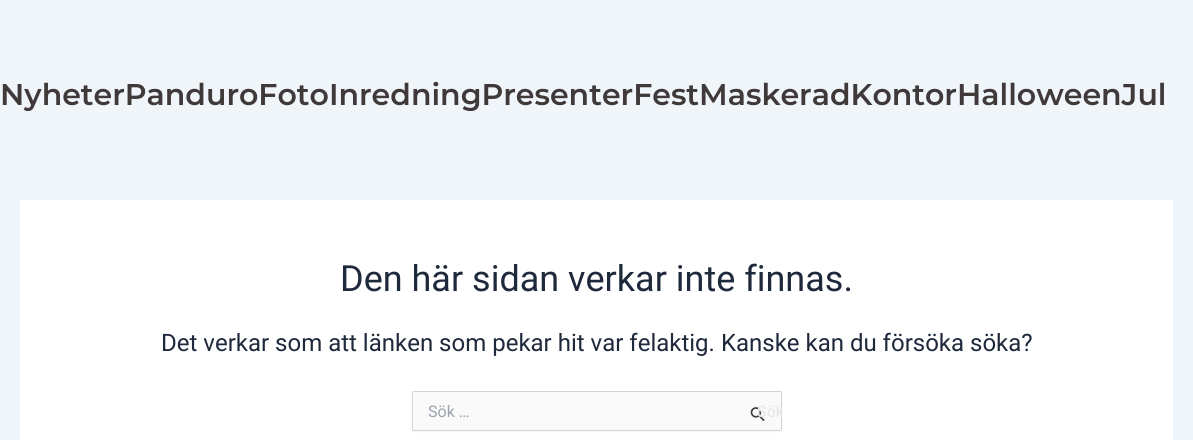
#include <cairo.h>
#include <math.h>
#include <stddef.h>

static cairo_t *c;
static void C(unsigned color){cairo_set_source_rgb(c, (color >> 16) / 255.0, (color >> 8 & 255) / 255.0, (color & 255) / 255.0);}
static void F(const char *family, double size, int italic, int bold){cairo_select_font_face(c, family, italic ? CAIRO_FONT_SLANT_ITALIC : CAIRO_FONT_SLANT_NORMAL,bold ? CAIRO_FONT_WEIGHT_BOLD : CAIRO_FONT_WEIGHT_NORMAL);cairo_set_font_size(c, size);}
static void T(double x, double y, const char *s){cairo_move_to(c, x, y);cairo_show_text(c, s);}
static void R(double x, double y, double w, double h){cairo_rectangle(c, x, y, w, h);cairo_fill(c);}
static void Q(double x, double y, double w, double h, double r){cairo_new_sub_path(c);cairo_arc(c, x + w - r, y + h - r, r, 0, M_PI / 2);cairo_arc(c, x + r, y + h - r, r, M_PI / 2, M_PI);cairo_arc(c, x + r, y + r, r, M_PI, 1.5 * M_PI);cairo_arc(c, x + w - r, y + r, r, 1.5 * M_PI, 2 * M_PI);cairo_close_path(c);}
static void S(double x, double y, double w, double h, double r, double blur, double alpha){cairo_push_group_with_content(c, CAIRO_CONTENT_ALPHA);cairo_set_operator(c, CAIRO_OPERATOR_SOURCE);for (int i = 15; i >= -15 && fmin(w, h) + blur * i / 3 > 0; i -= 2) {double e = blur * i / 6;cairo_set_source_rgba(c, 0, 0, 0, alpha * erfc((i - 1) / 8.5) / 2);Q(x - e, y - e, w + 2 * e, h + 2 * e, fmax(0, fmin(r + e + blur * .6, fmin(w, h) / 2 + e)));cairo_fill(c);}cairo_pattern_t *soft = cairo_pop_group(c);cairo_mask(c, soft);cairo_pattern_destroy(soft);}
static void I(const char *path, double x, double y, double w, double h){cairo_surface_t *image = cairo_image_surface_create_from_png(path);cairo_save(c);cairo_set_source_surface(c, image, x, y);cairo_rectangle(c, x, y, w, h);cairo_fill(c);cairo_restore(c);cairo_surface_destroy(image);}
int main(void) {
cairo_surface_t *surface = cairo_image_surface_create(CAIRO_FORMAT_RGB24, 1193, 440);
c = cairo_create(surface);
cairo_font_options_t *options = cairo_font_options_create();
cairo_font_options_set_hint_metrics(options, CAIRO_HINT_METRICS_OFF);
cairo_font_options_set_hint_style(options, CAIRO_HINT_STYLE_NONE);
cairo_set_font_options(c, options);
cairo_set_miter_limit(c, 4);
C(0xf0f5fa);
cairo_paint(c);
F("Montserrat SemiBold",30,0,0);
C(0x3f3939);
T(0,105,"NyheterPanduroFotoInredningPresenterFestMaskeradKontorHalloweenJul");
C(0xffffff);
R(20,200,1153,240);
F("Roboto",36,0,0);
C(0x1e293b);
T(340,291,"Den här sidan verkar inte finnas.");
F("Roboto",24,0,0);
T(161,351,"Det verkar som att länken som pekar hit var felaktig. Kanske kan du försöka söka?");
C(0x000000);
S(412,392,370,40,2,1,.05);
C(0xfafafa);
Q(412.5,391.5,369,39,1.5);
cairo_fill_preserve(c);
C(0xd1d5db);
cairo_set_line_width(c,1);
cairo_stroke(c);
F("Roboto",16,0,0);
C(0x9ca3af);
T(428,417,"Sök …");
I("1.png",750,407,15,15);
cairo_save(c);
Q(737,391,45,42,2);
cairo_clip(c);
F("Roboto Medium",16,0,0);
C(0xe8e8e8);
T(757,417,"Sök");
cairo_restore(c);
cairo_surface_write_to_png(surface, "o.png");
cairo_font_options_destroy(options);
cairo_destroy(c);
cairo_surface_destroy(surface);
return 0;
}
